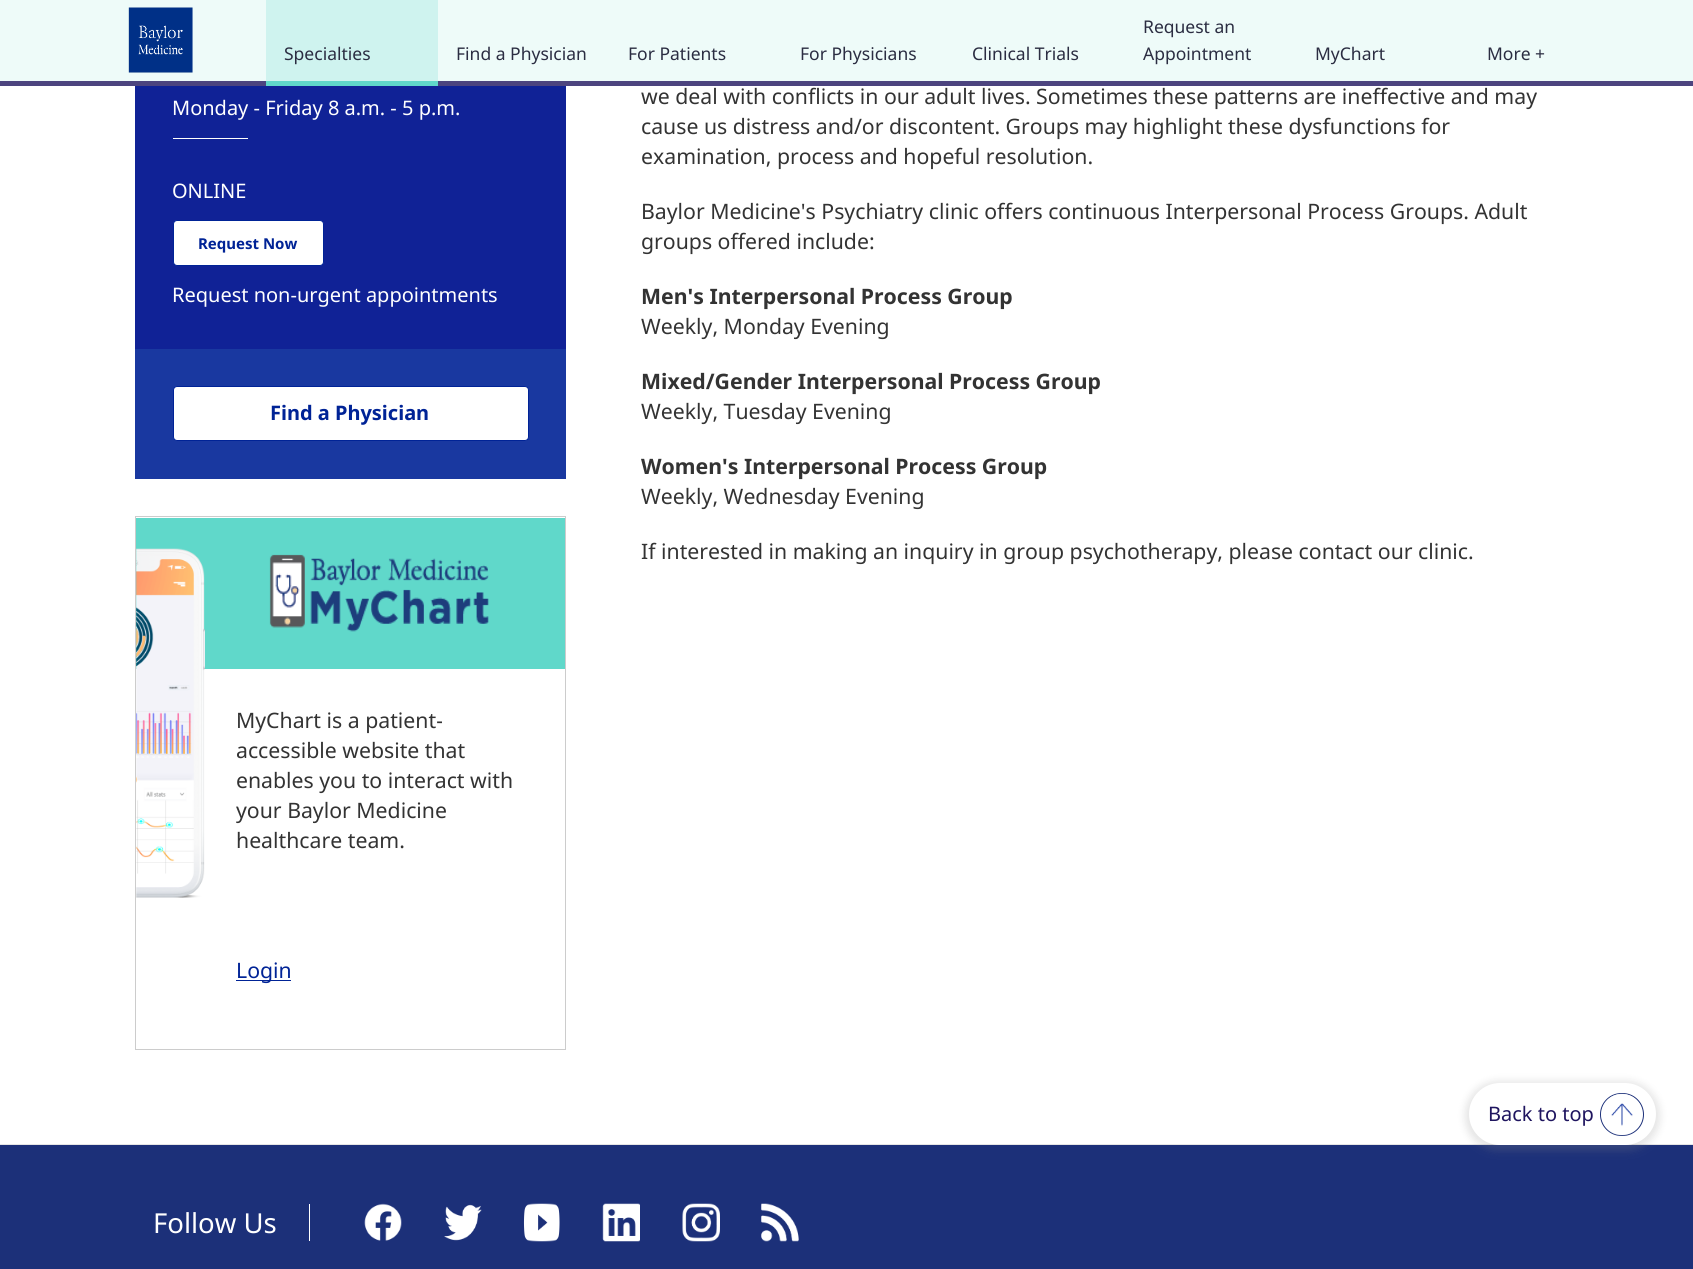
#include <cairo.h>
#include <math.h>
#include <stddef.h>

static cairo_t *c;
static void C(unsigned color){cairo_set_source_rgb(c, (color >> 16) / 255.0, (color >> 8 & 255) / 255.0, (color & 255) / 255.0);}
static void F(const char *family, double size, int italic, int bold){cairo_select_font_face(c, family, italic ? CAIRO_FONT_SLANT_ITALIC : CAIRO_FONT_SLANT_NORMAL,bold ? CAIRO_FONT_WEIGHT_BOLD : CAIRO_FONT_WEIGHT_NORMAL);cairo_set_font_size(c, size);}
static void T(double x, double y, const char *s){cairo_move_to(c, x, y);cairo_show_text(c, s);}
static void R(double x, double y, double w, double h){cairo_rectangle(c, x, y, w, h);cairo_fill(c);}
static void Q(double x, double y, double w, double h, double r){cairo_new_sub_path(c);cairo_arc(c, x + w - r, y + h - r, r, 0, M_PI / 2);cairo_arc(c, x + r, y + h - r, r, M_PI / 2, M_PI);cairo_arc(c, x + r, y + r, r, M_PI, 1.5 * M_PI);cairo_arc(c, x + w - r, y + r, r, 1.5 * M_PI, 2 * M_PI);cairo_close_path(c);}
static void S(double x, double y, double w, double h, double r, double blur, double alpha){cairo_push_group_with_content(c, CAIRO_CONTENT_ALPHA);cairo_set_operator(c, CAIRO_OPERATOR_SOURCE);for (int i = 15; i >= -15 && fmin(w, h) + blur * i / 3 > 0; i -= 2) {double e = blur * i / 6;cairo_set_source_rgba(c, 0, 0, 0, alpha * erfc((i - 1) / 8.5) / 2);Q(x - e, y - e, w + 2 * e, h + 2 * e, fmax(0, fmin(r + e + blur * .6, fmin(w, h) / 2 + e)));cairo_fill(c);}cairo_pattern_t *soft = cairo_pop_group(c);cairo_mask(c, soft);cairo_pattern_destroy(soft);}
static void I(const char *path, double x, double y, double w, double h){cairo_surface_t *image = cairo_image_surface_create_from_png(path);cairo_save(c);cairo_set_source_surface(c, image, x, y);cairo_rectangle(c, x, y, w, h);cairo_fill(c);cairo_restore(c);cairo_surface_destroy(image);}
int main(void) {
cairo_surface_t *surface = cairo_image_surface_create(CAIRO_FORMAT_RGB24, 1693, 1269);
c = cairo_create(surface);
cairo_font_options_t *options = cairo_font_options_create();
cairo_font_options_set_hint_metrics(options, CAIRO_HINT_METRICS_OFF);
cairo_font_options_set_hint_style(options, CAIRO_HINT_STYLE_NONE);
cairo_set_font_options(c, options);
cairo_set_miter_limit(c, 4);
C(0xffffff);
cairo_paint(c);
C(0xeefbf9);
R(0,0,1693,81);
C(0x4c447f);
R(0,81,1693,5);
I("1.png",128,7,65,66);
C(0xcff3ef);
R(266,0,172,81);
C(0x60d8ca);
R(266,81,172,5);
F("Noto Sans",17.5,0,0);
C(0x2b2d42);
T(284,60,"Specialties");
T(456,60,"Find a Physician");
T(628,60,"For Patients");
T(800,60,"For Physicians");
T(972,60,"Clinical Trials");
T(1143,33,"Request an");
T(1143,60,"Appointment");
T(1315,60,"MyChart");
T(1487,60,"More +");
C(0x102296);
R(135,86,431,263);
F("Noto Sans",20,0,0);
C(0xffffff);
T(172,115,"Monday - Friday 8 a.m. - 5 p.m.");
R(173,138,75,1);
T(172,198,"ONLINE");
Q(173.5,220.5,150,45,3.5);
cairo_fill_preserve(c);
C(0x002396);
cairo_set_line_width(c,1);
cairo_stroke(c);
F("Noto Sans",15,0,1);
T(198,249,"Request Now");
F("Noto Sans",20,0,0);
C(0xffffff);
T(172,302,"Request non-urgent appointments");
C(0x1938a0);
R(135,349,431,130);
C(0xffffff);
Q(173.5,386.5,355,54,3.5);
cairo_fill_preserve(c);
C(0x002396);
cairo_stroke(c);
F("Noto Sans",20,0,1);
T(270,420,"Find a Physician");
cairo_rectangle(c,135.5,516.5,430,533);
C(0xcccccc);
cairo_stroke(c);
C(0x60d8ca);
R(136,518,429,151);
I("2.png",269,554,220,78);
I("3.png",136,548,69,350);
F("Noto Sans",21.25,0,0);
C(0x333333);
T(236,728,"MyChart is a patient-");
T(236,758,"accessible website that");
T(236,788,"enables you to interact with");
T(236,818,"your Baylor Medicine");
T(236,848,"healthcare team.");
C(0x002396);
R(236,980,55,1);
T(236,978,"Login");
C(0x333333);
T(641,104,"we deal with conflicts in our adult lives. Sometimes these patterns are ineffective and may");
T(641,134,"cause us distress and/or discontent. Groups may highlight these dysfunctions for");
T(641,164,"examination, process and hopeful resolution.");
T(641,219,"Baylor Medicine's Psychiatry clinic offers continuous Interpersonal Process Groups. Adult");
T(641,249,"groups offered include:");
F("Noto Sans",21.25,0,1);
T(641,304,"Men's Interpersonal Process Group");
F("Noto Sans",21.25,0,0);
T(641,334,"Weekly, Monday Evening");
F("Noto Sans",21.25,0,1);
T(641,389,"Mixed/Gender Interpersonal Process Group");
F("Noto Sans",21.25,0,0);
T(641,419,"Weekly, Tuesday Evening");
F("Noto Sans",21.25,0,1);
T(641,474,"Women's Interpersonal Process Group");
F("Noto Sans",21.25,0,0);
T(641,504,"Weekly, Wednesday Evening");
T(641,559,"If interested in making an inquiry in group psychotherapy, please contact our clinic.");
C(0xe5e5e5);
R(0,1144,1693,1);
C(0x1c3079);
R(0,1145,1693,124);
C(0x888888);
S(1465,1081,195,70,35,4,.22);
C(0xffffff);
Q(1469,1083,187,62,31);
cairo_fill(c);
F("Noto Sans",20,0,0);
C(0x1f155f);
T(1488,1121,"Back to top");
Q(1600.5,1093.5,43,42,21);
C(0x1c3079);
cairo_stroke(c);
I("4.png",1601,1093,41,43);
F("Noto Sans",27.5,0,0);
C(0xffffff);
T(153,1233,"Follow Us");
R(309,1204,1,37);
I("5.png",364,1203,38,38);
I("6.png",444,1204,38,37);
I("7.png",523,1203,37,39);
I("8.png",602,1203,38,39);
I("9.png",682,1203,38,39);
I("10.png",761,1203,38,39);
cairo_surface_write_to_png(surface, "o.png");
cairo_font_options_destroy(options);
cairo_destroy(c);
cairo_surface_destroy(surface);
return 0;
}
